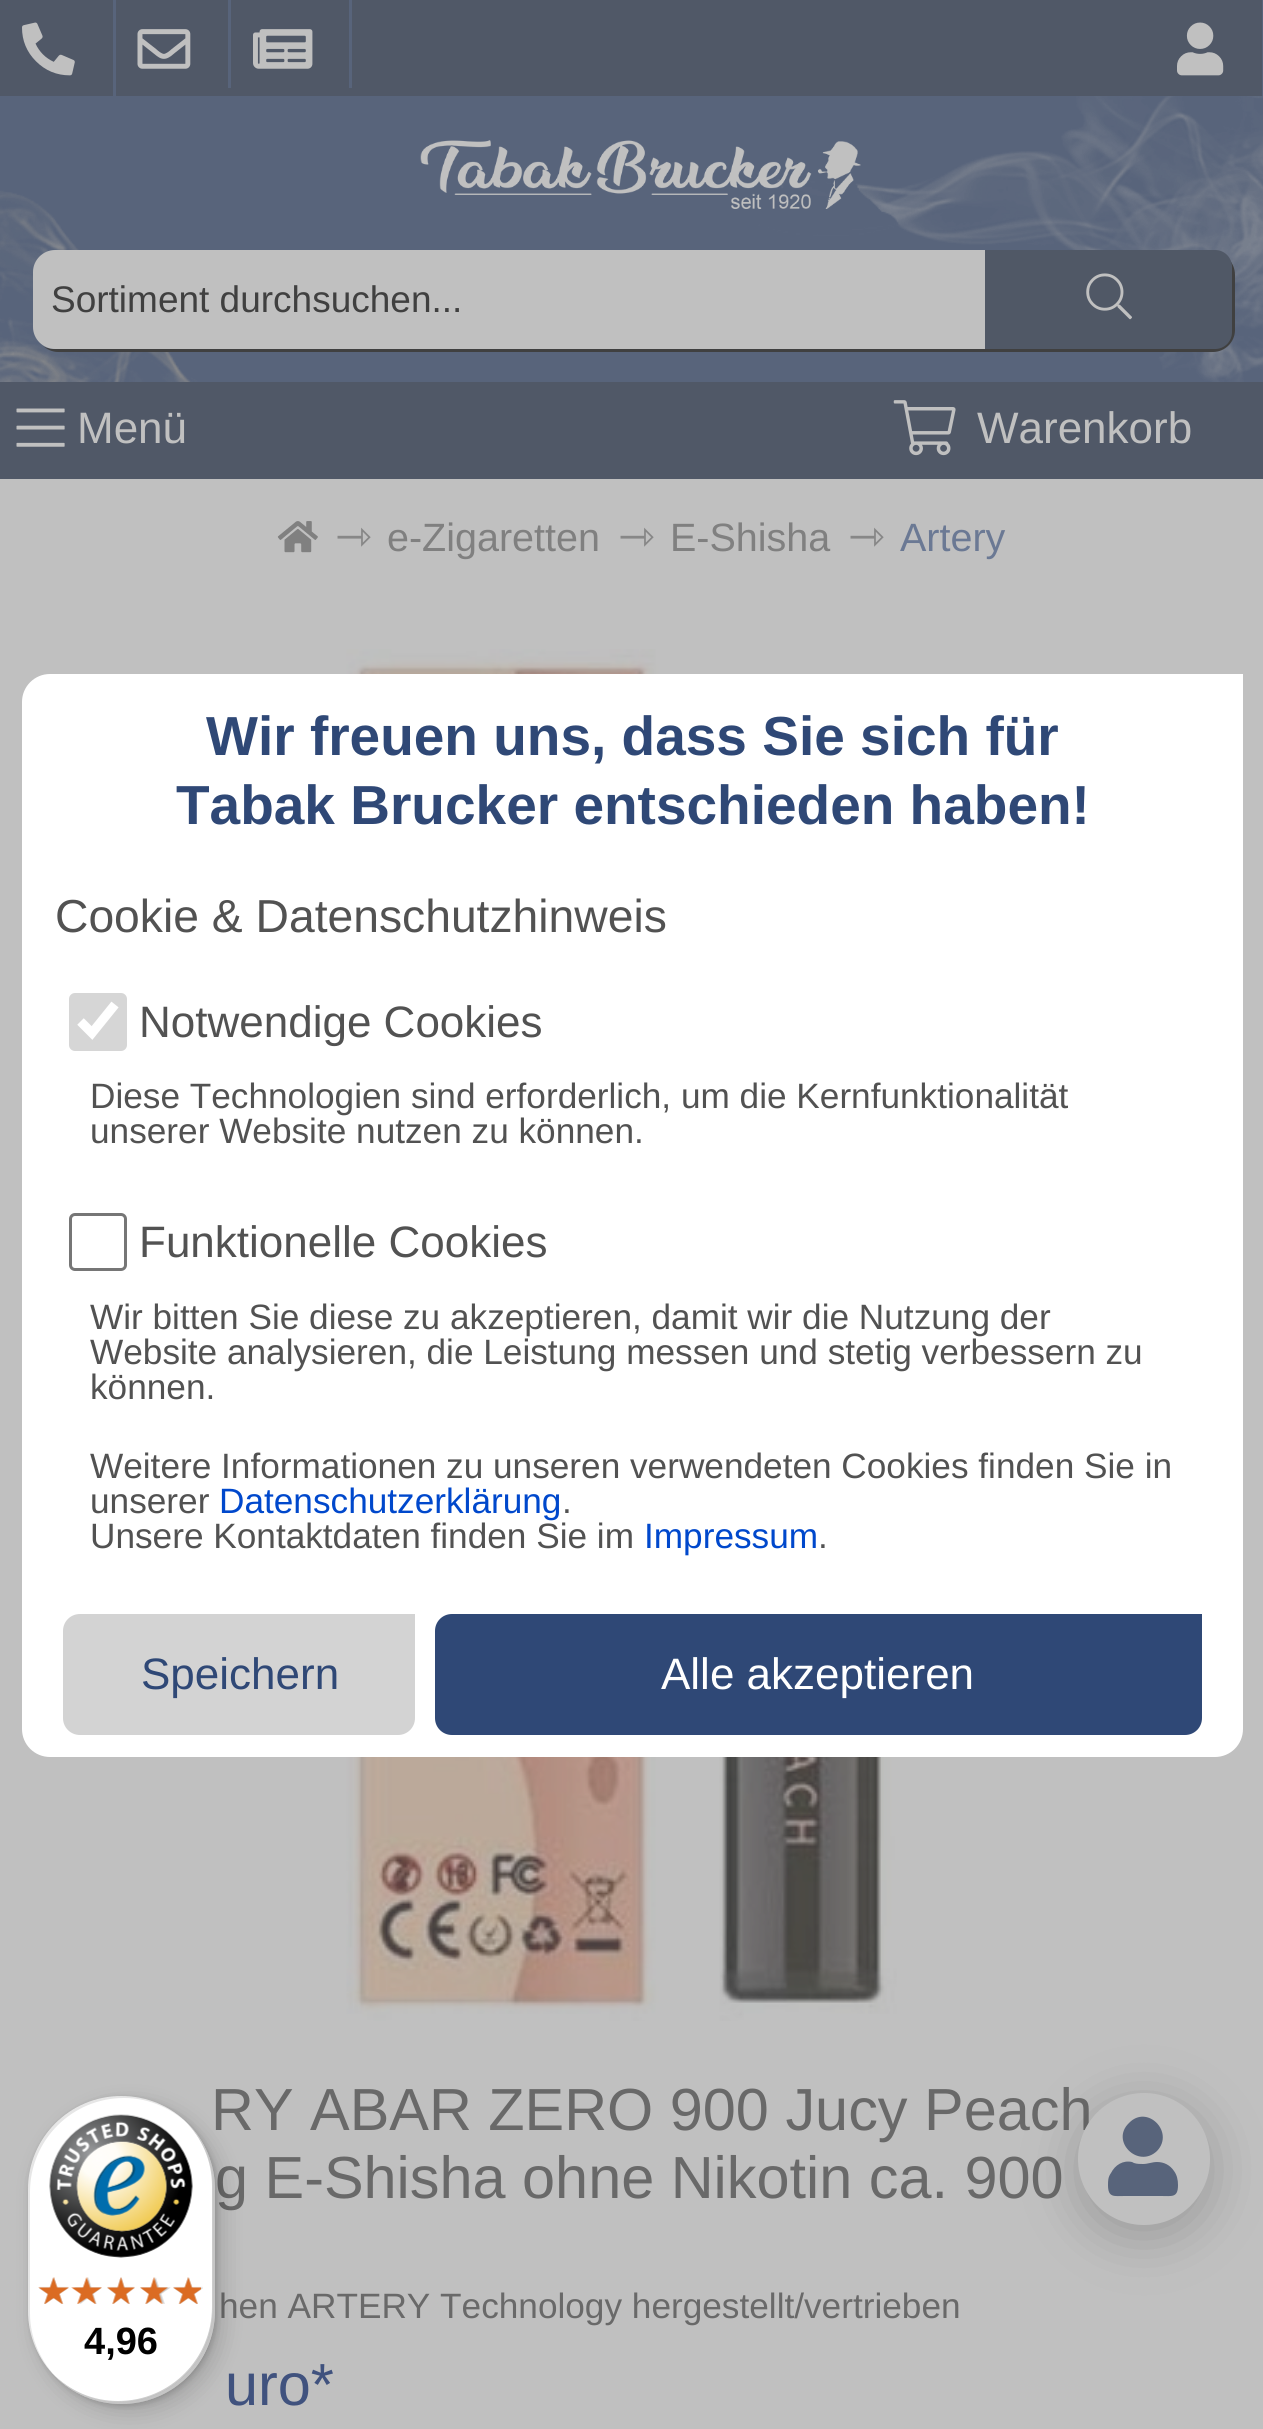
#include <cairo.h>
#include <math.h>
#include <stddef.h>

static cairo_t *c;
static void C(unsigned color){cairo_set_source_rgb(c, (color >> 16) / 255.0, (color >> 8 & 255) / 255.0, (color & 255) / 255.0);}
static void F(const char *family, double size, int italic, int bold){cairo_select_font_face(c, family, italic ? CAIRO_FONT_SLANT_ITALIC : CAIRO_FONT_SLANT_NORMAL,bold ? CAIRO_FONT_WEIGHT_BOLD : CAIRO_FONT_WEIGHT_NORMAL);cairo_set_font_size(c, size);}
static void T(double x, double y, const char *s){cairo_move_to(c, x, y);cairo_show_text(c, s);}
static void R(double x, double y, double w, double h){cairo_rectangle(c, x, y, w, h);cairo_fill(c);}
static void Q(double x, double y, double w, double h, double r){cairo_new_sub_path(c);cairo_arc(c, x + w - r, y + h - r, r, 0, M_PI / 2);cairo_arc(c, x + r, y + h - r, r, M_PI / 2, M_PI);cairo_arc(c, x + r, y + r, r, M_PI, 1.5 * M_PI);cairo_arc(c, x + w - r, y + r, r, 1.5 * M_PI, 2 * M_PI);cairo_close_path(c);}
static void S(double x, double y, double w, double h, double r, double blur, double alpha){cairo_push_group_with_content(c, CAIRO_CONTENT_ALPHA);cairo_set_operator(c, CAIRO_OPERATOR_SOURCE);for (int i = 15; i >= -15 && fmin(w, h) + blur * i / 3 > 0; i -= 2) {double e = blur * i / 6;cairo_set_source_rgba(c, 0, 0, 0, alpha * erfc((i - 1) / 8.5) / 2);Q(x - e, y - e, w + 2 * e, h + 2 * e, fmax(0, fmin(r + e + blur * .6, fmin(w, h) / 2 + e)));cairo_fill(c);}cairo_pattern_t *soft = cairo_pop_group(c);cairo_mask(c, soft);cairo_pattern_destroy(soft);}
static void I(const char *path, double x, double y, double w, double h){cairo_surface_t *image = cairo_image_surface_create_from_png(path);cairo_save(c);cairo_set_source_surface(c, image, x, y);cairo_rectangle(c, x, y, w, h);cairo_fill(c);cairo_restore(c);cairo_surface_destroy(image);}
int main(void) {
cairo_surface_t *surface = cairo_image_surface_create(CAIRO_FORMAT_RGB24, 1263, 2429);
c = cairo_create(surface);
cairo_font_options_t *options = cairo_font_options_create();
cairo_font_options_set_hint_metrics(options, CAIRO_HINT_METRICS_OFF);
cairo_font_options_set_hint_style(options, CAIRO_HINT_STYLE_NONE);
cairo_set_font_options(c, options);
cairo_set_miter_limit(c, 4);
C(0xc0c0c0);
cairo_paint(c);
C(0x58647b);
R(0,96,1263,286);
I("1.png",0,96,1263,286);
C(0x505867);
R(0,0,1262,96);
C(0x58647b);
R(113,0,3,96);
I("2.png",22,22,53,54);
R(228,0,3,88);
I("3.png",137,29,54,40);
R(349,0,3,88);
I("4.png",253,29,60,40);
R(1262,0,1,96);
I("5.png",1177,22,47,54);
I("6.png",420,140,441,69);
C(0x404040);
cairo_new_path(c);
cairo_move_to(c,42,345);
cairo_curve_to(c,46,349,52,352,58,352);
cairo_line_to(c,1213,352);
cairo_curve_to(c,1225,352,1235,342,1235,330);
cairo_line_to(c,1235,275);
cairo_curve_to(c,1235,268,1232,261,1226,257);
cairo_curve_to(c,1230,261,1232,267,1232,272);
cairo_line_to(c,1232,327);
cairo_curve_to(c,1232,339,1222,349,1210,349);
cairo_line_to(c,55,349);
cairo_curve_to(c,50,349,45,348,42,345);
cairo_close_path(c);
cairo_fill(c);
C(0xc0c0c0);
cairo_new_path(c);
cairo_move_to(c,55,250);
cairo_line_to(c,985,250);
cairo_line_to(c,985,349);
cairo_line_to(c,55,349);
cairo_curve_to(c,43,349,33,339,33,327);
cairo_line_to(c,33,272);
cairo_curve_to(c,33,260,43,250,55,250);
cairo_close_path(c);
cairo_fill(c);
F("Liberation Sans",37,0,0);
C(0x404040);
T(51,312,"Sortiment durchsuchen...");
C(0x505866);
cairo_new_path(c);
cairo_move_to(c,985,250);
cairo_line_to(c,1215,250);
cairo_curve_to(c,1224.5,250,1232,257.5,1232,267);
cairo_line_to(c,1232,332);
cairo_curve_to(c,1232,341.5,1224.5,349,1215,349);
cairo_line_to(c,985,349);
cairo_close_path(c);
cairo_fill(c);
I("7.png",1086,273,46,47);
C(0x505867);
R(0,382,1263,97);
I("8.png",16,408,49,39);
F("Liberation Sans",44,0,0);
C(0xc0c0c0);
T(77,443,"Menü");
I("9.png",893,400,63,56);
T(977,443,"Warenkorb");
I("10.png",277,521,41,32);
F("DejaVu Sans",44,0,0);
C(0x878787);
T(335,551,"⇾");
F("Liberation Sans",39.5,0,0);
C(0x808080);
T(387,551,"e-Zigaretten");
F("DejaVu Sans",44,0,0);
C(0x878787);
T(618,551,"⇾");
F("Liberation Sans",39.5,0,0);
C(0x808080);
T(670,551,"E-Shisha");
F("DejaVu Sans",44,0,0);
C(0x878787);
T(848,551,"⇾");
F("Liberation Sans",39.5,0,0);
C(0x6b7994);
T(900,551,"Artery");
I("11.png",346,649,551,1372);
F("Liberation Sans",59.4,0,0);
C(0x696969);
T(211,2130,"RY ABAR ZERO 900 Jucy Peach");
T(215,2198,"g E-Shisha ohne Nikotin ca. 900");
F("Liberation Sans",35.2,0,0);
T(219,2318,"hen ARTERY Technology hergestellt/vertrieben");
F("Liberation Sans",59.4,0,0);
C(0x40527e);
T(225,2405,"uro*");
C(0xffffff);
cairo_new_path(c);
cairo_move_to(c,50,674);
cairo_line_to(c,1243,674);
cairo_line_to(c,1243,1729);
cairo_curve_to(c,1243,1744.5,1230.5,1757,1215,1757);
cairo_line_to(c,50,1757);
cairo_curve_to(c,34.5,1757,22,1744.5,22,1729);
cairo_line_to(c,22,702);
cairo_curve_to(c,22,686.5,34.5,674,50,674);
cairo_close_path(c);
cairo_fill(c);
F("Liberation Sans",55,0,1);
C(0x2f4876);
T(206,755,"Wir freuen uns, dass Sie sich für");
T(176,824,"Tabak Brucker entschieden haben!");
F("Liberation Sans",46.25,0,0);
C(0x525252);
T(55,932,"Cookie & Datenschutzhinweis");
C(0xd6d6d6);
Q(69,993,58,58,6);
cairo_fill(c);
cairo_new_path(c);
cairo_move_to(c,80.5,1021.5);
cairo_line_to(c,92,1033);
cairo_line_to(c,115,1004.5);
C(0xffffff);
cairo_set_line_width(c,9.2);
cairo_stroke(c);
F("Liberation Sans",44,0,0);
C(0x525252);
T(139,1037,"Notwendige Cookies");
F("Liberation Sans",35.2,0,0);
T(90,1108,"Diese Technologien sind erforderlich, um die Kernfunktionalität");
T(90,1143,"unserer Website nutzen zu können.");
Q(70.5,1214.5,55,55,4.5);
C(0x767676);
cairo_set_line_width(c,3);
cairo_stroke(c);
F("Liberation Sans",44,0,0);
C(0x525252);
T(139,1257,"Funktionelle Cookies");
F("Liberation Sans",35.2,0,0);
T(90,1329,"Wir bitten Sie diese zu akzeptieren, damit wir die Nutzung der");
T(90,1364,"Website analysieren, die Leistung messen und stetig verbessern zu");
T(90,1399,"können.");
T(90,1478,"Weitere Informationen zu unseren verwendeten Cookies finden Sie in");
T(90,1513,"unserer");
C(0x0048cc);
T(219,1513,"Datenschutzerklärung");
C(0x525252);
T(562,1513,".");
T(90,1548,"Unsere Kontaktdaten finden Sie im");
C(0x0048cc);
T(644,1548,"Impressum");
C(0x525252);
T(818,1548,".");
C(0xd3d3d3);
cairo_new_path(c);
cairo_move_to(c,80,1614);
cairo_line_to(c,415,1614);
cairo_line_to(c,415,1718);
cairo_curve_to(c,415,1727.5,407.5,1735,398,1735);
cairo_line_to(c,80,1735);
cairo_curve_to(c,70.5,1735,63,1727.5,63,1718);
cairo_line_to(c,63,1631);
cairo_curve_to(c,63,1621.5,70.5,1614,80,1614);
cairo_close_path(c);
cairo_fill(c);
F("Liberation Sans",44,0,0);
C(0x2f4876);
T(141,1689,"Speichern");
cairo_new_path(c);
cairo_move_to(c,452,1614);
cairo_line_to(c,1202,1614);
cairo_line_to(c,1202,1718);
cairo_curve_to(c,1202,1727.5,1194.5,1735,1185,1735);
cairo_line_to(c,452,1735);
cairo_curve_to(c,442.5,1735,435,1727.5,435,1718);
cairo_line_to(c,435,1631);
cairo_curve_to(c,435,1621.5,442.5,1614,452,1614);
cairo_close_path(c);
cairo_fill(c);
C(0xffffff);
T(661,1689,"Alle akzeptieren");
C(0x404040);
S(1078,2104,132,132,66,27.5,.3);
C(0xc0c0c0);
cairo_arc(c,1144,2159,66,0,2 * M_PI);
cairo_fill(c);
C(0x58647b);
cairo_new_path(c);
cairo_move_to(c,1157,2151);
cairo_curve_to(c,1138,2169,1110,2141,1129,2123);
cairo_curve_to(c,1147,2104,1175,2132,1157,2151);
cairo_close_path(c);
cairo_move_to(c,1157,2162);
cairo_curve_to(c,1164,2162,1170,2165,1174,2171);
cairo_curve_to(c,1177,2175,1178,2180,1178,2185);
cairo_curve_to(c,1178,2198,1172,2196,1161,2196);
cairo_line_to(c,1125,2196);
cairo_curve_to(c,1114,2196,1108,2198,1108,2185);
cairo_curve_to(c,1108,2181,1108,2177,1111,2173);
cairo_curve_to(c,1115,2165,1123,2160,1132,2162);
cairo_line_to(c,1134,2163);
cairo_curve_to(c,1137,2164,1140,2164,1143,2164);
cairo_curve_to(c,1148,2164,1152,2162,1157,2162);
cairo_close_path(c);
cairo_fill(c);
C(0x000000);
S(36,2104,187,308,93.5,11,.15);
S(30,2098,187,308,93.5,3,.15);
C(0xffffff);
Q(28,2096,187,308,93.5);
cairo_fill(c);
cairo_set_source_rgba(c,0,0,0,0.1);
cairo_new_path(c);
cairo_move_to(c,124,2098);
cairo_curve_to(c,150,2098,173,2109,190,2126);
cairo_curve_to(c,173,2108,149,2096,122,2096);
cairo_curve_to(c,70,2096,28,2138,28,2190);
cairo_line_to(c,28,2310);
cairo_curve_to(c,28,2338,40,2362,58,2379);
cairo_curve_to(c,41,2362,30,2339,30,2313);
cairo_line_to(c,30,2192);
cairo_curve_to(c,30,2140,72,2098,124,2098);
cairo_close_path(c);
cairo_fill(c);
cairo_set_source_rgba(c,0,0,0,0.2);
cairo_new_path(c);
cairo_move_to(c,53,2374);
cairo_curve_to(c,70,2392,94,2404,122,2404);
cairo_curve_to(c,173,2404,215,2362,215,2310);
cairo_line_to(c,215,2190);
cairo_curve_to(c,215,2162,203,2138,185,2121);
cairo_curve_to(c,202,2138,212,2161,212,2186);
cairo_line_to(c,212,2307);
cairo_curve_to(c,212,2359,170,2401,118,2401);
cairo_curve_to(c,93,2401,70,2391,53,2374);
cairo_close_path(c);
cairo_fill(c);
cairo_set_source_rgba(c,0.196,0.196,0.196,0.2);
cairo_new_path(c);
cairo_move_to(c,53,2374);
cairo_curve_to(c,70,2392,94,2404,122,2404);
cairo_curve_to(c,173,2404,215,2362,215,2310);
cairo_line_to(c,215,2190);
cairo_curve_to(c,215,2162,203,2138,185,2121);
cairo_curve_to(c,202,2138,213,2161,213,2187);
cairo_line_to(c,213,2308);
cairo_curve_to(c,213,2360,171,2402,119,2402);
cairo_curve_to(c,93,2402,70,2391,53,2374);
cairo_close_path(c);
cairo_fill(c);
cairo_set_source_rgba(c,1,1,1,0.3);
cairo_new_path(c);
cairo_move_to(c,53,2374);
cairo_curve_to(c,70,2392,94,2404,122,2404);
cairo_curve_to(c,173,2404,215,2362,215,2310);
cairo_line_to(c,215,2190);
cairo_curve_to(c,215,2162,203,2138,185,2121);
cairo_curve_to(c,202,2138,213,2162,213,2188);
cairo_line_to(c,213,2309);
cairo_curve_to(c,213,2360,171,2402,120,2402);
cairo_curve_to(c,94,2402,70,2391,53,2374);
cairo_close_path(c);
cairo_fill(c);
I("12.png",49,2114,144,144);
I("18.png",39,2277,30,27);
I("13.png",38,2277,31,27);
I("19.png",74,2277,28,27);
I("14.png",71,2277,31,27);
I("20.png",107,2277,28,27);
I("15.png",107,2277,28,27);
I("21.png",140,2277,31,27);
I("16.png",140,2277,28,27);
I("22.png",173,2277,30,27);
I("17.png",173,2277,28,27);
F("Liberation Sans",38,0,1);
C(0x000000);
T(84,2354,"4,96");
cairo_surface_write_to_png(surface, "o.png");
cairo_font_options_destroy(options);
cairo_destroy(c);
cairo_surface_destroy(surface);
return 0;
}
